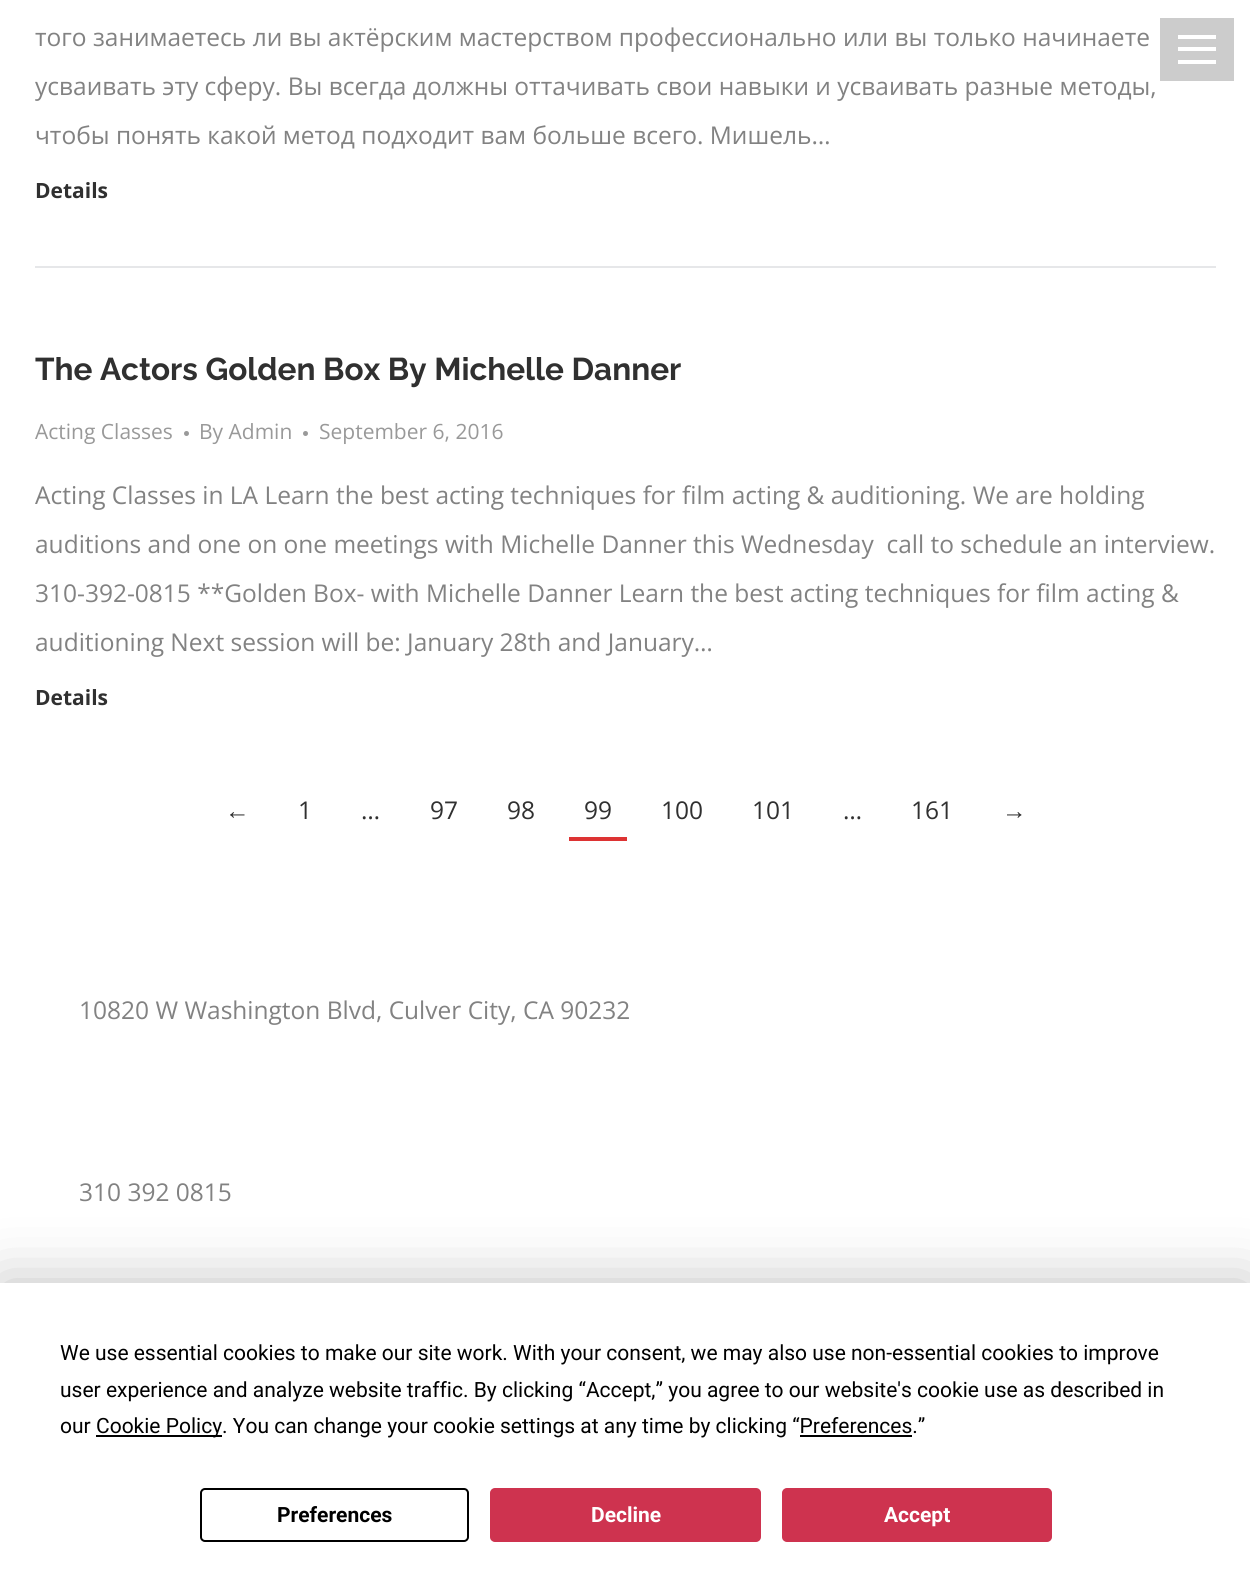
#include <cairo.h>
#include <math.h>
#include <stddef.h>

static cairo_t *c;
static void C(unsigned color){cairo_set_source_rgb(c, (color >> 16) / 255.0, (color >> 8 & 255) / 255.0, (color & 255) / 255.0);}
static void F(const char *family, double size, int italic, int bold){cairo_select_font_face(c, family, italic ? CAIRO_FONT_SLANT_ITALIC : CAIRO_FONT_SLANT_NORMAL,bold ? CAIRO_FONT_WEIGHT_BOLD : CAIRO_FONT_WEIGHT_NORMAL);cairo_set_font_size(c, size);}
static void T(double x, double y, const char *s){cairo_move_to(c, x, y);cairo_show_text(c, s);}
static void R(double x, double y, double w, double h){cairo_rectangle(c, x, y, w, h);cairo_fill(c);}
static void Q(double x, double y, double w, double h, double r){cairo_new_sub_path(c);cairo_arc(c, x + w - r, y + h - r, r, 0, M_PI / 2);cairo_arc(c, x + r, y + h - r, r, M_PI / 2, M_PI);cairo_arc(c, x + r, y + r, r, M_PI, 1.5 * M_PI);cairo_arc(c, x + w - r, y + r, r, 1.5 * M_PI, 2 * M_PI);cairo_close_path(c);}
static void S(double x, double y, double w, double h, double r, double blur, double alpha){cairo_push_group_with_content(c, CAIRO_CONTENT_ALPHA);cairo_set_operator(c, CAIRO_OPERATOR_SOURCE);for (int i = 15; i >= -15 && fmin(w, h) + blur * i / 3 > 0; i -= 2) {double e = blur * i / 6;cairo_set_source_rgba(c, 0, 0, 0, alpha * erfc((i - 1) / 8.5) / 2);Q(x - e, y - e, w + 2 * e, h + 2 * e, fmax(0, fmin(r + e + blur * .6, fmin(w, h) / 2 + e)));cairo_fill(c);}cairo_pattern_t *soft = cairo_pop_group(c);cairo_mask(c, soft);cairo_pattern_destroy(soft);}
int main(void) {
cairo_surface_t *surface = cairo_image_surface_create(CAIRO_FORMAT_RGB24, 1250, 1593);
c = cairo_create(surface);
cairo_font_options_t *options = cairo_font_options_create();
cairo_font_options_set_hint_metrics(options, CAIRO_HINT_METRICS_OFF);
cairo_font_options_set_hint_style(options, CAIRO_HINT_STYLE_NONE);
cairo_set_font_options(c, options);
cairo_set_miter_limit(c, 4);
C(0xffffff);
cairo_paint(c);
C(0xcccccc);
R(1160,18,74,63);
C(0xffffff);
R(1178,35,38,4);
R(1178,47,38,4);
R(1178,60,38,4);
F("Open Sans",24.5,0,0);
C(0x828282);
T(35,46,"того занимаетесь ли вы актёрским мастерством профессионально или вы только начинаете");
T(35,95,"усваивать эту сферу. Вы всегда должны оттачивать свои навыки и усваивать разные методы,");
T(35,144,"чтобы понять какой метод подходит вам больше всего. Мишель…");
F("Open Sans",21,0,1);
C(0x303030);
T(35,198,"Details");
C(0xe6e7e9);
R(35,266,1181,2);
F("Raleway",31.5,0,1);
C(0x303030);
T(35,380,"The Actors Golden Box By Michelle Danner");
F("Open Sans",21,0,0);
C(0x999999);
T(35,439,"Acting Classes");
cairo_new_path(c);
cairo_arc(c,186.5,433.5,2.5,0,2 * M_PI);
cairo_fill(c);
T(199,439,"By Admin");
cairo_new_path(c);
cairo_arc(c,305.5,433.5,2.5,0,2 * M_PI);
cairo_fill(c);
T(319,439,"September 6, 2016");
F("Open Sans",24.5,0,0);
C(0x828282);
T(35,504,"Acting Classes in LA Learn the best acting techniques for film acting & auditioning. We are holding");
T(35,553,"auditions and one on one meetings with Michelle Danner this Wednesday  call to schedule an interview.");
T(35,602,"310-392-0815 **Golden Box- with Michelle Danner Learn the best acting techniques for film acting &");
T(35,651,"auditioning Next session will be: January 28th and January…");
F("Open Sans",21,0,1);
C(0x303030);
T(35,705,"Details");
F("Liberation Sans",24.5,0,0);
T(225,819,"←");
F("Open Sans",24.5,0,0);
T(298,819,"1");
T(361,819,"…");
T(430,819,"97");
T(507,819,"98");
T(584,819,"99");
C(0xdd3333);
R(569,837,58,4);
C(0x303030);
T(661,819,"100");
T(752,819,"101");
T(843,819,"…");
T(911,819,"161");
F("Liberation Sans",24.5,0,0);
T(1002,819,"→");
F("Open Sans",24.5,0,0);
C(0x828282);
T(79,1019,"10820 W Washington Blvd, Culver City, CA 90232");
T(79,1201,"310 392 0815");
C(0x000000);
S(0,1283,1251,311,0,30.5,.25);
C(0xffffff);
R(0,1283,1250,310);
F("Roboto",21,0,0);
C(0x000000);
T(60,1360,"We use essential cookies to make our site work. With your consent, we may also use non-essential cookies to improve");
T(60,1397,"user experience and analyze website traffic. By clicking “Accept,” you agree to our website's cookie use as described in");
T(60,1433,"our");
R(96,1435,126,2);
T(96,1433,"Cookie Policy. You can change your cookie settings at any time by clicking “Preferences.”");
R(800,1435,112,2);
Q(201,1489,267,52,4);
cairo_stroke(c);
F("Roboto",21,0,1);
T(277,1522,"Preferences");
C(0xce334f);
Q(491,1489,269,52,4);
cairo_fill_preserve(c);
cairo_stroke(c);
C(0xffffff);
T(591,1522,"Decline");
C(0xce334f);
Q(783,1489,268,52,4);
cairo_fill_preserve(c);
cairo_stroke(c);
C(0xffffff);
T(884,1522,"Accept");
cairo_surface_write_to_png(surface, "o.png");
cairo_font_options_destroy(options);
cairo_destroy(c);
cairo_surface_destroy(surface);
return 0;
}
